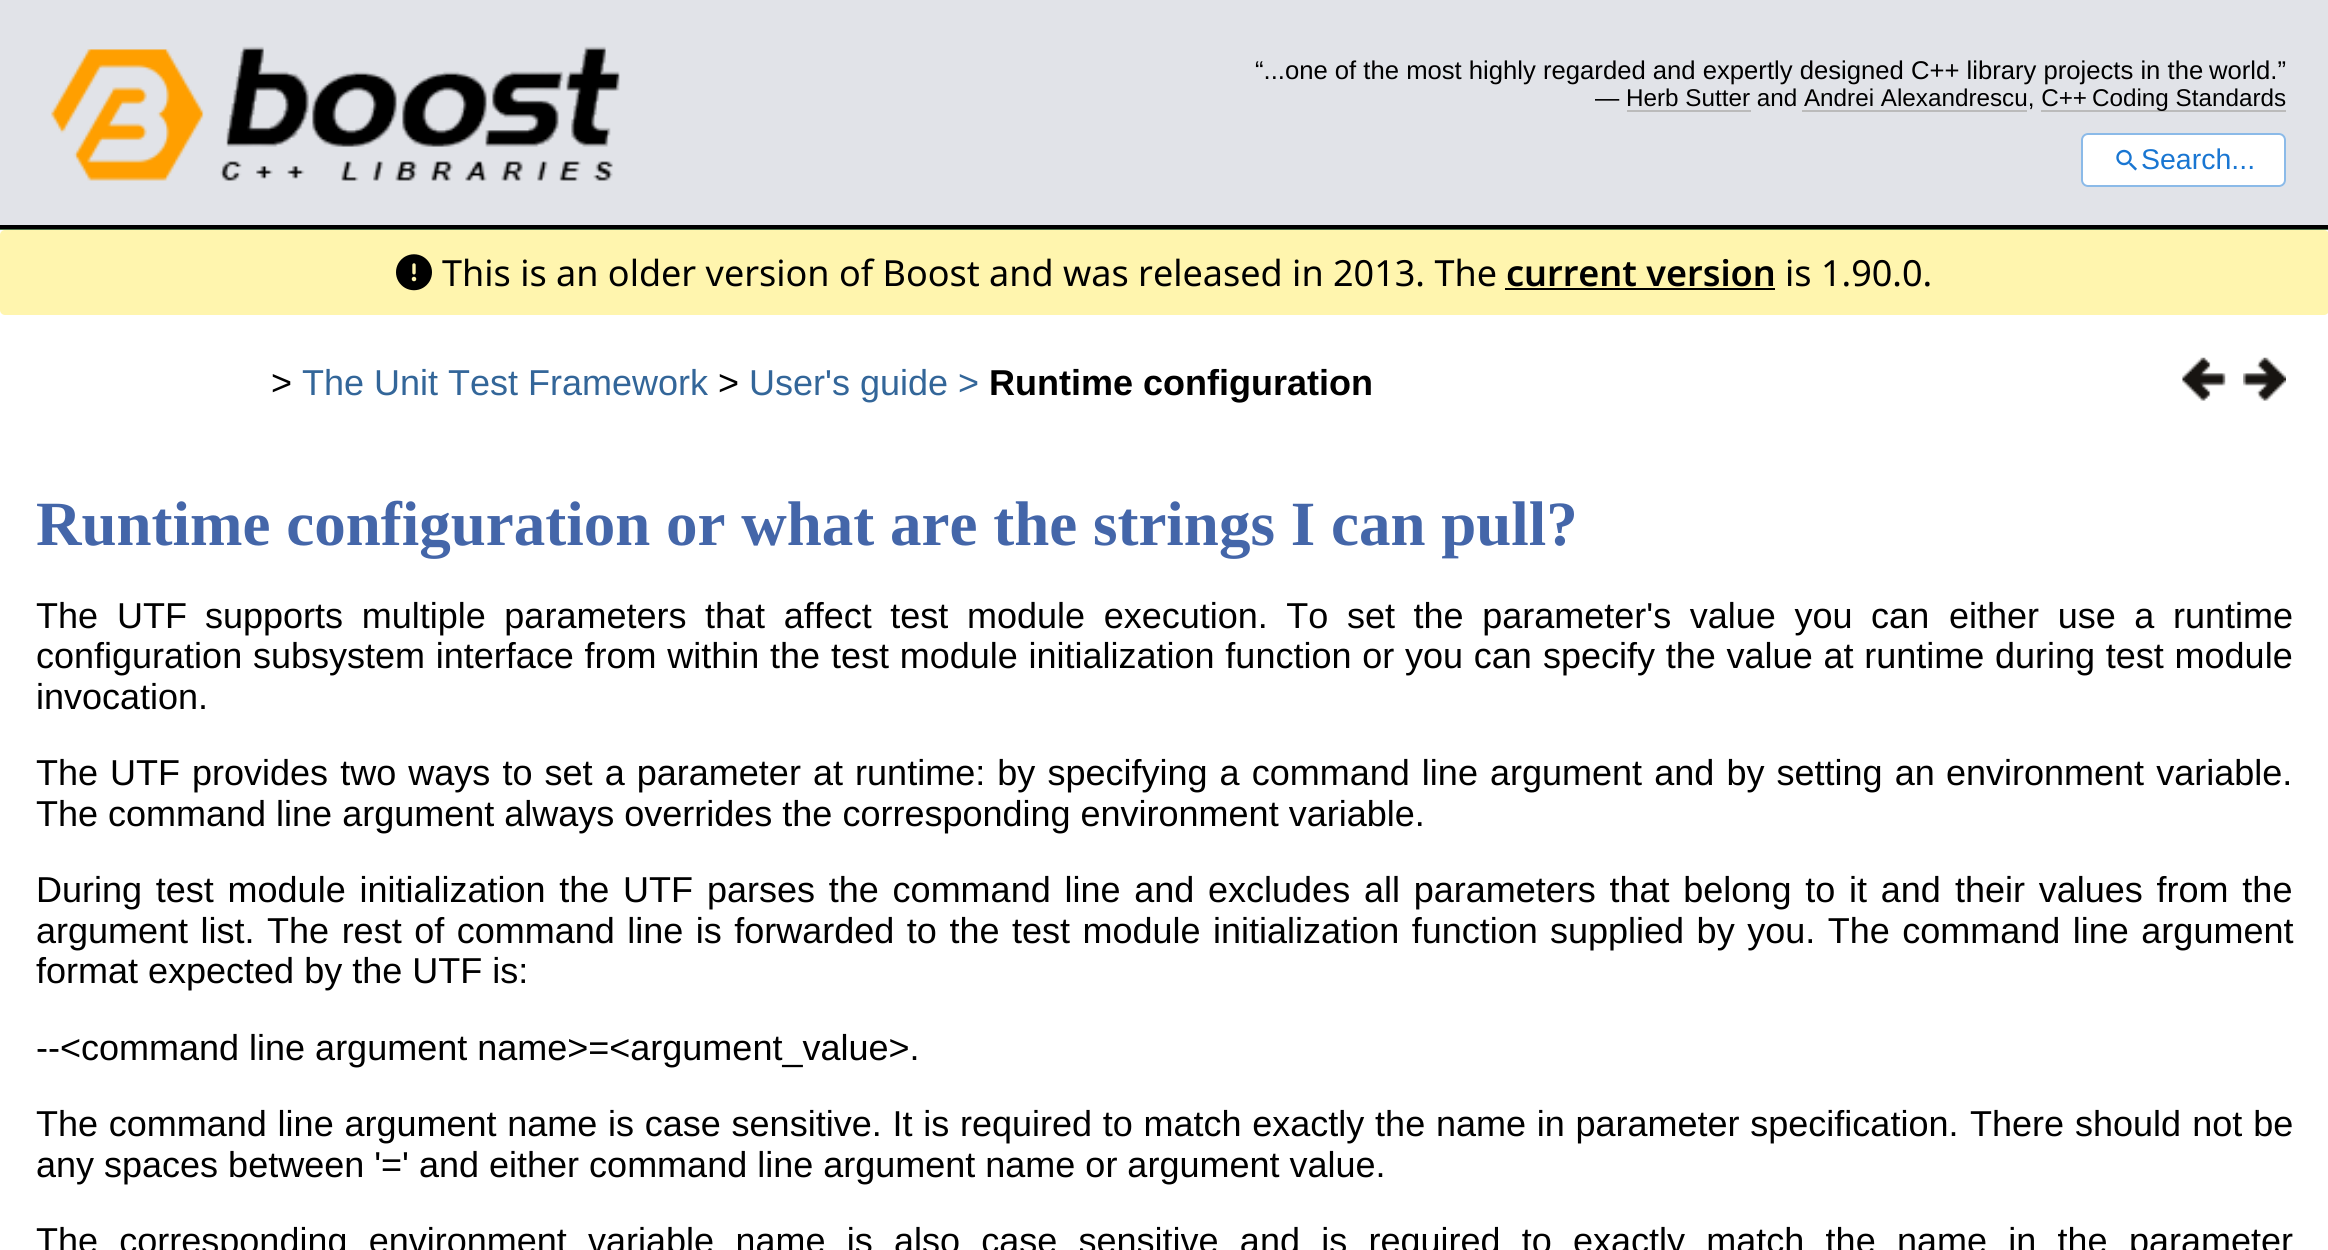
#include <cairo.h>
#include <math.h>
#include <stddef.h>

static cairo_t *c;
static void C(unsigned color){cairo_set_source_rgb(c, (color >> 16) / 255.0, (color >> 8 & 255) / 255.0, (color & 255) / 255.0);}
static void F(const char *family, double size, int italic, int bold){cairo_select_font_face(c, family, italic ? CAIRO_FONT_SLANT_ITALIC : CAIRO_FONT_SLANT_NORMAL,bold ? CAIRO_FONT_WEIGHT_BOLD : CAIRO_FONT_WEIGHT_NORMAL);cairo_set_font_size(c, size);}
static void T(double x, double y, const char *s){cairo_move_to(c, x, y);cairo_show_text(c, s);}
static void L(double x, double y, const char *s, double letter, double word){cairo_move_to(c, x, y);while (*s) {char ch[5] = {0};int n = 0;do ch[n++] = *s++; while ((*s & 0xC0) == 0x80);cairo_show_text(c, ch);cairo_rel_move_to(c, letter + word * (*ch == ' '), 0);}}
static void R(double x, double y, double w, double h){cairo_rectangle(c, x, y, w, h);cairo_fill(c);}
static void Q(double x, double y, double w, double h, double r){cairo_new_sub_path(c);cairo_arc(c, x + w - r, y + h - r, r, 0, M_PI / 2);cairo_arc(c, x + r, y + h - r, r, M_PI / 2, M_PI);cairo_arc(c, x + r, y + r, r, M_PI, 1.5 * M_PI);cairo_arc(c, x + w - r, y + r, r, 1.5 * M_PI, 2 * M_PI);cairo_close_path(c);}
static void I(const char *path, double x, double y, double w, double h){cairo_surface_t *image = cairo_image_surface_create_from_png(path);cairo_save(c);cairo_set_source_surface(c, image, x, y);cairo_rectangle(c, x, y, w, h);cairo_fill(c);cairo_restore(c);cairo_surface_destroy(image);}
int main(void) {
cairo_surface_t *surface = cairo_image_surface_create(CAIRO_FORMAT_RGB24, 2328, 1250);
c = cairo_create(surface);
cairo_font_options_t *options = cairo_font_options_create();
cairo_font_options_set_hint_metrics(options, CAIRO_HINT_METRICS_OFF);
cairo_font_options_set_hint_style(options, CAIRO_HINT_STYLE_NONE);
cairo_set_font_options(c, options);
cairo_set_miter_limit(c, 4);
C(0xffffff);
cairo_paint(c);
C(0x4f744d);
R(0,229,2328,1);
C(0xe1e3e8);
R(0,0,2328,225);
C(0x000000);
R(0,225,2328,4);
I("1.png",51,46,569,135);
F("Liberation Sans",25.65,0,0);
T(1255,79,"“...one of the most highly regarded and expertly designed C++ library projects in the");
T(2209,79,"world.”");
F("Liberation Sans",24.25,0,0);
T(1595,106,"— Herb Sutter and Andrei Alexandrescu, C++");
C(0xbbbbbb);
R(2041,110,245,2);
C(0x000000);
T(2092,106,"Coding Standards");
C(0xbbbbbb);
R(1627,110,124,2);
R(1802,110,225,2);
C(0xffffff);
Q(2081,133,205,54,7);
cairo_fill(c);
Q(2082,134,203,52,6);
cairo_set_source_rgba(c,0.098,0.463,0.824,0.5);
cairo_stroke(c);
I("2.png",2116,149,21,22);
F("Liberation Sans",28.5,0,0);
C(0x1976d2);
T(2141,169,"Search...");
C(0xfff5ae);
Q(0,230,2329,85,5);
cairo_fill(c);
I("3.png",396,254,36,37);
F("Noto Sans",36,0,0);
C(0x000000);
T(442,286,"This is an older version of Boost and was released in 2013. The");
F("Noto Sans SemiBold",36,0,0);
T(1506,286,"current version");
R(1505,288,270,2);
F("Noto Sans",36,0,0);
T(1785,286,"is 1.90.0.");
F("Liberation Sans",36,0,0);
T(271,395,">");
C(0x336699);
T(302,395,"The Unit Test Framework");
C(0x000000);
T(718,395,">");
C(0x336699);
T(749,395,"User's guide >");
F("Liberation Sans",36,0,1);
C(0x000000);
T(989,395,"Runtime configuration");
I("4.png",2182,357,44,44);
I("5.png",2243,357,43,44);
F("Liberation Serif",63,0,1);
C(0x4466a9);
T(36,545,"Runtime configuration or what are the strings I can pull?");
F("Liberation Sans",36,0,0);
C(0x000000);
T(36,628,"The");
T(117,628,"UTF");
L(205,628,"supports multiple parameters that affect test module execution. To set the parameter's value you can",0,8.6);
L(1949,628,"either use a runtime",0,8.6);
L(36,668,"configuration subsystem interface from within the test module initialization function or you can",0,.75);
L(1543,668,"specify the value at runtime during test module",0,.75);
T(36,709,"invocation.");
T(36,785,"The");
T(110,785,"UTF");
L(192,785,"provides two ways to set a parameter at runtime: by specifying a command line argument and by setting an",0,2.1);
L(1946,785,"environment variable.",0,2.1);
T(36,826,"The command line argument always overrides the corresponding environment variable.");
L(36,902,"During test module initialization the",0,3.75);
T(623,902,"UTF");
L(707,902,"parses the command line and excludes all parameters that belong to it and",0,3.75);
L(1955,902,"their values from the",0,3.75);
L(36,943,"argument list. The rest of command line is forwarded to the test module initialization function",0,2.5);
L(1550,943,"supplied by you. The command line argument",0,2.5);
T(36,983,"format expected by the UTF is:");
T(36,1060,"--<command line argument name>=<argument_value>.");
L(36,1136,"The command line argument name is case sensitive. It is required to match exactly the name in parameter specification.",0,.75);
L(1970,1136,"There should not be",0,1);
T(36,1177,"any spaces between '=' and either command line argument name or argument value.");
L(36,1253,"The corresponding environment variable name is also case sensitive and is required to exactly match the name in the",0,11.25);
T(2129,1253,"parameter");
cairo_surface_write_to_png(surface, "o.png");
cairo_font_options_destroy(options);
cairo_destroy(c);
cairo_surface_destroy(surface);
return 0;
}
